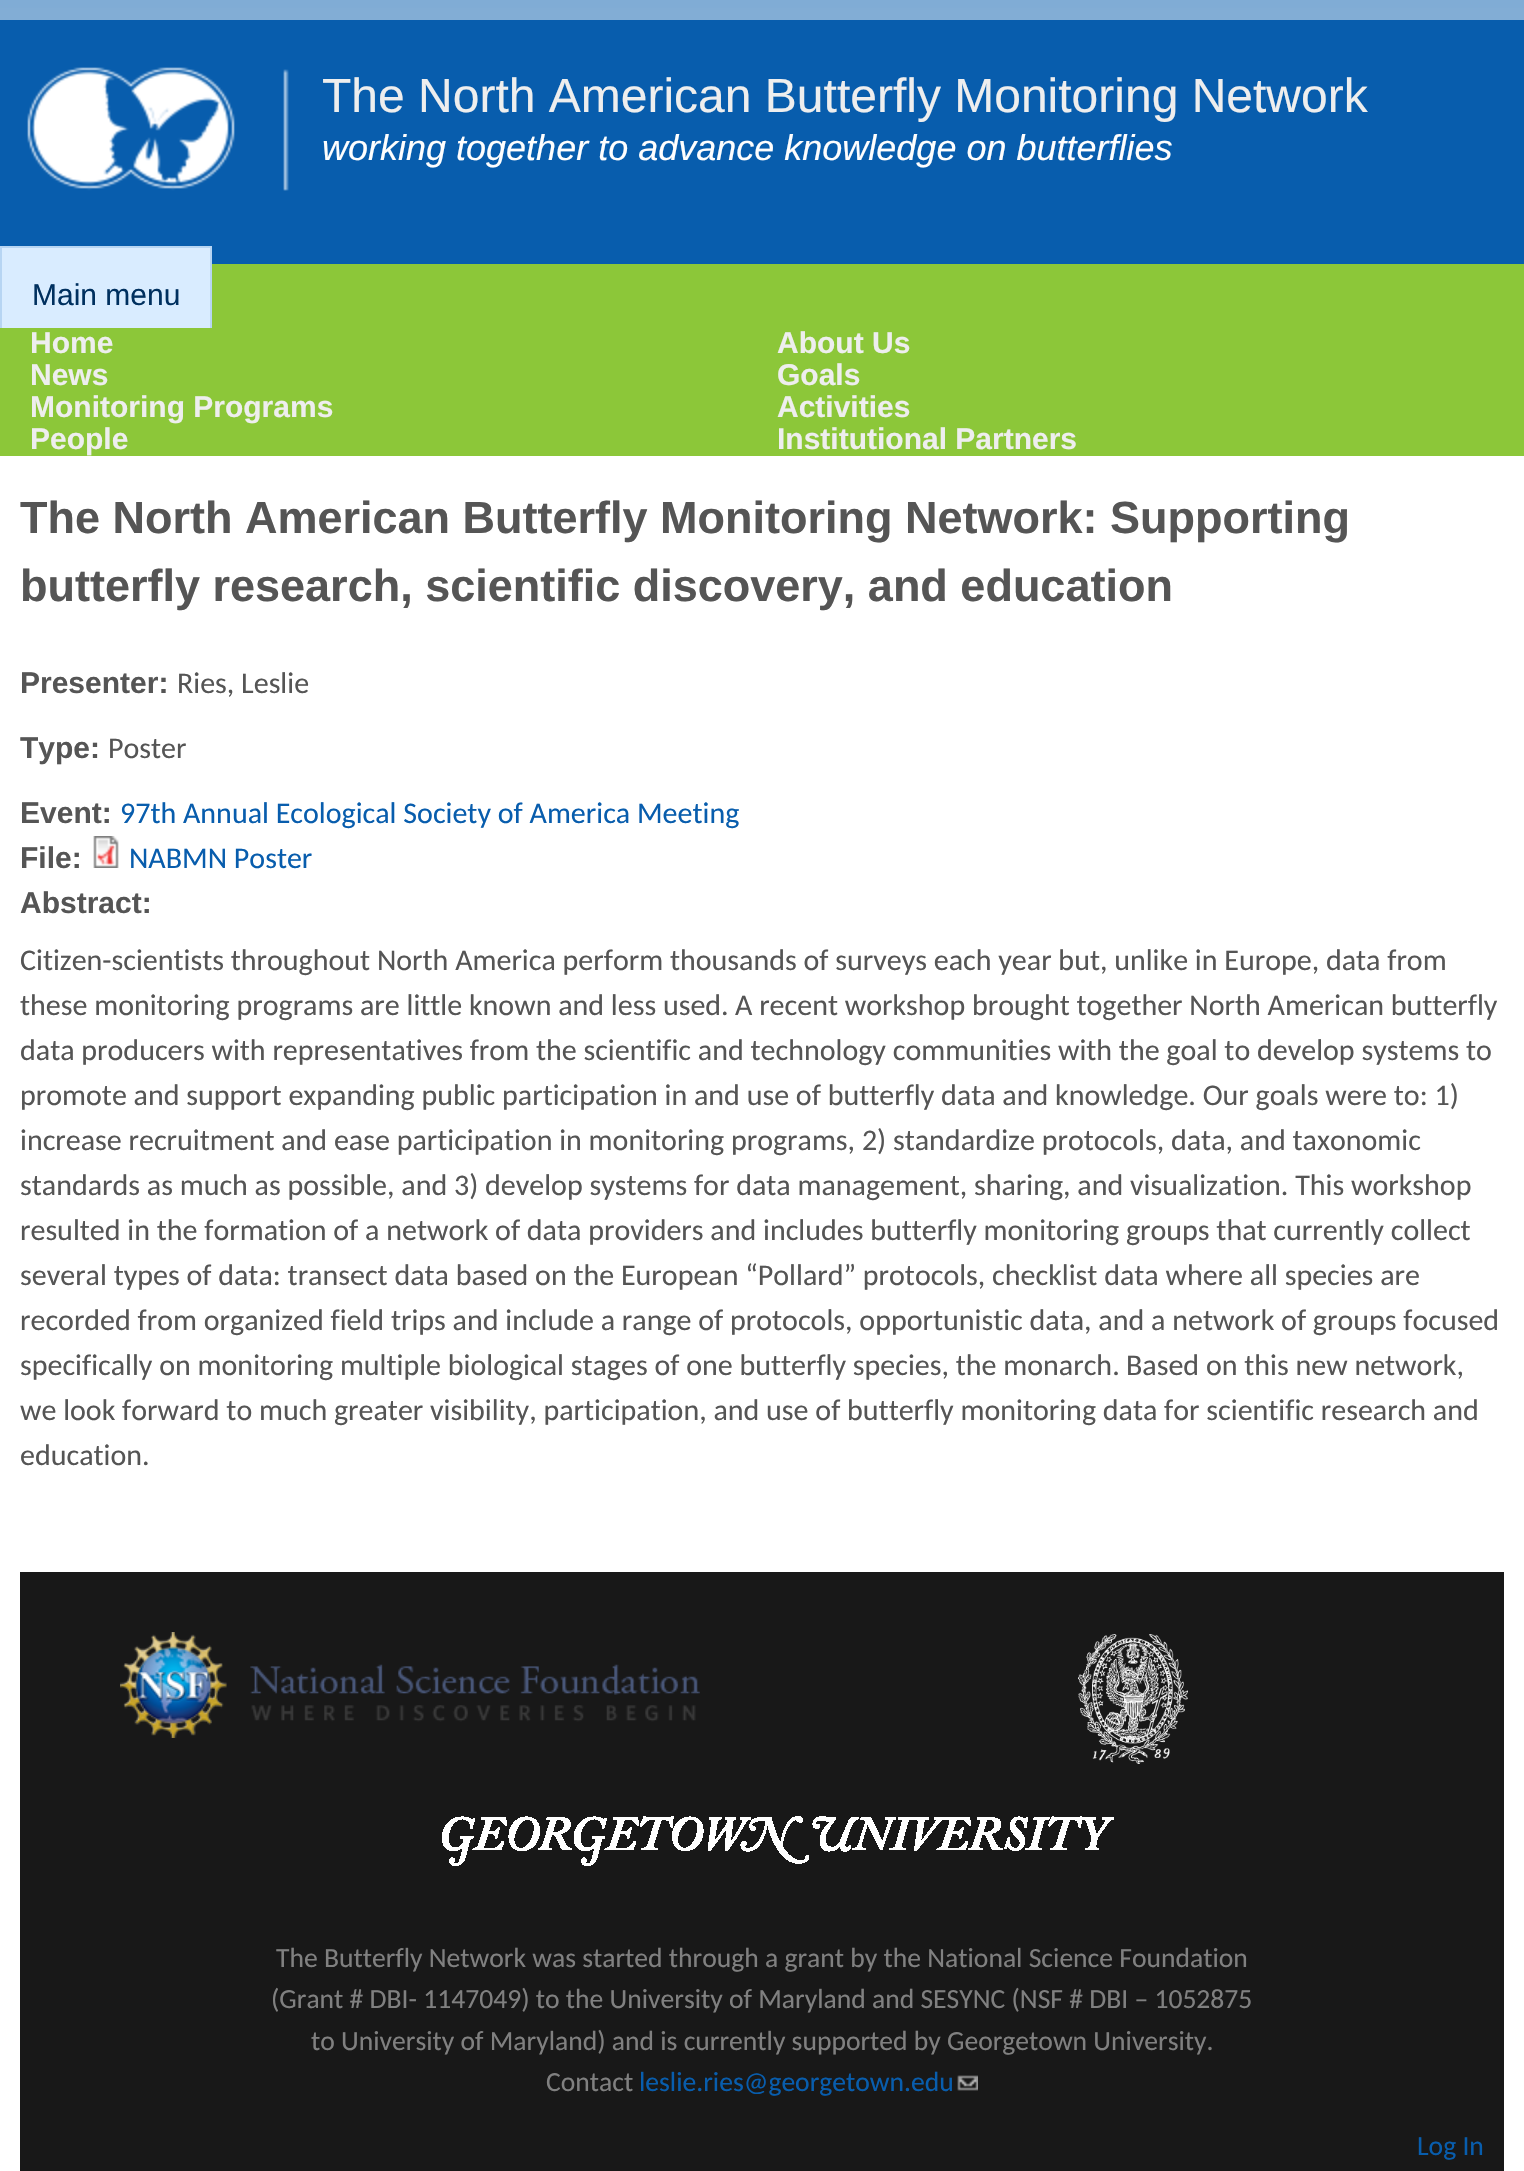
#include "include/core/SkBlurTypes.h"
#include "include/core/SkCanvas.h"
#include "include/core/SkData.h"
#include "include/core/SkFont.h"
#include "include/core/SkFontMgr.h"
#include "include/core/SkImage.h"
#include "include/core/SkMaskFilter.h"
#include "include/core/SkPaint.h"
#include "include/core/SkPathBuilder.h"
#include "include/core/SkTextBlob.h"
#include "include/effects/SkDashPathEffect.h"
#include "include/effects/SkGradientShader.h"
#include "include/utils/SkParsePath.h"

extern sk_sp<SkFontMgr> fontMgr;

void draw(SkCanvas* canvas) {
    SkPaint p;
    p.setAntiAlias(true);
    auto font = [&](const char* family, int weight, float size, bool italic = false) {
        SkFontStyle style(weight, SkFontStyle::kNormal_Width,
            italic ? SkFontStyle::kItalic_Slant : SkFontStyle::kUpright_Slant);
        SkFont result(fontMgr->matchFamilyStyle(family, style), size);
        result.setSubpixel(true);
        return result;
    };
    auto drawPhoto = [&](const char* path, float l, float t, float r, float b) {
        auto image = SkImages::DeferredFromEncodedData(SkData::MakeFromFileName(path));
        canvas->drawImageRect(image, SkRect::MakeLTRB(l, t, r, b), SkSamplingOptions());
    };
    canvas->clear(0xFFFFFFFF);
    drawPhoto("media/1.png", 0, 0, 1524, 20);
    p.setColor(0xFF085DAD);
    canvas->drawRect(SkRect::MakeLTRB(0, 20, 1524, 264), p);
    drawPhoto("media/2.png", 27, 67, 289, 191);
    auto font1 = font("Liberation Sans", 400, 48);
    p.setColor(0xFFEEEEEE);
    canvas->drawString("The North American Butterfly Monitoring Network", 322, 112, font1, p);
    auto font2 = font("Liberation Sans", 400, 36, true);
    p.setColor(0xFFFEFEFE);
    canvas->drawString("working together to advance knowledge on butterflies", 322, 160, font2, p);
    p.setColor(0xFF8CC739);
    canvas->drawRect(SkRect::MakeLTRB(0, 264, 1524, 456), p);
    p.setColor(0xFFD9ECFF);
    canvas->drawRect(SkRect::MakeLTRB(2, 248, 210, 328), p);
    p.setStyle(SkPaint::kStroke_Style);
    p.setStrokeWidth(2);
    p.setColor(0xFFB7D5F3);
    canvas->drawRect(SkRect::MakeLTRB(1, 247, 211, 343), p);
    auto font3 = font("Liberation Sans", 400, 30);
    p.setStyle(SkPaint::kFill_Style);
    p.setColor(0xFF00305F);
    canvas->drawString("Main menu", 32, 305, font3, p);
    p.setColor(0xFF8CC739);
    canvas->drawRect(SkRect::MakeLTRB(0, 328, 212, 344), p);
    auto font4 = font("Liberation Sans", 700, 30);
    p.setColor(0xFFEEEEEE);
    {
        const struct { const char* s; float x, y; } items[] = {
            {"Home", 30, 353},
            {"About Us", 777, 353},
            {"News", 30, 385},
            {"Goals", 777, 385},
            {"Monitoring Programs", 30, 417},
            {"Activities", 777, 417},
            {"People", 30, 449},
            {"Institutional Partners", 777, 449},
        };
        for (auto [s, x, y] : items) {
            canvas->drawString(s, x, y, font4, p);
        }
    }
    auto font5 = font("Liberation Sans", 700, 45);
    p.setColor(0xFF555555);
    canvas->drawString("The North American Butterfly Monitoring Network: Supporting", 20, 533, font5, p);
    canvas->drawString("butterfly research, scientific discovery, and education", 20, 601, font5, p);
    canvas->drawString("Presenter:", 20, 693, font4, p);
    auto font6 = font("Carlito", 400, 30);
    canvas->drawString("Ries, Leslie", 177, 693, font6, p);
    canvas->drawString("Type:", 20, 758, font4, p);
    canvas->drawString("Poster", 108, 758, font6, p);
    canvas->drawString("Event:", 20, 823, font4, p);
    p.setColor(0xFF085DAD);
    canvas->drawString("97th Annual Ecological Society of America Meeting", 120, 823, font6, p);
    p.setColor(0xFF555555);
    canvas->drawString("File:", 20, 868, font4, p);
    drawPhoto("media/3.png", 93, 836, 119, 868);
    p.setColor(0xFF085DAD);
    canvas->drawString("NABMN Poster", 129, 868, font6, p);
    p.setColor(0xFF555555);
    canvas->drawString("Abstract:", 20, 913, font4, p);
    {
        const struct { const char* s; float x, y; } items[] = {
            {"Citizen-scientists throughout North America perform thousands of surveys each year but, unlike in Europe, data from", 20, 970},
            {"these monitoring programs are little known and less used.", 20, 1015},
            {"A recent workshop brought together North American butterfly", 735, 1015},
            {"data producers with representatives from the scientific and technology communities with the goal to develop systems to", 20, 1060},
            {"promote and support expanding public participation in and use of butterfly data and knowledge. Our goals were to: 1)", 20, 1105},
            {"increase recruitment and ease participation in monitoring programs, 2) standardize protocols, data, and taxonomic", 20, 1150},
            {"standards as much as possible, and 3) develop systems for data management, sharing, and visualization. This workshop", 20, 1195},
            {"resulted in the formation of a network of data providers and includes butterfly monitoring groups that currently collect", 20, 1240},
            {"several types of data: transect data based on the European “Pollard” protocols, checklist data where all species are", 20, 1285},
            {"recorded from organized field trips and include a range of protocols, opportunistic data, and a network of groups focused", 20, 1330},
            {"specifically on monitoring multiple biological stages of one butterfly species, the monarch.", 20, 1375},
            {"Based on this new network,", 1126, 1375},
            {"we look forward to much greater visibility, participation, and use of butterfly monitoring data for scientific research and", 20, 1420},
            {"education.", 20, 1465},
        };
        for (auto [s, x, y] : items) {
            canvas->drawString(s, x, y, font6, p);
        }
    }
    p.setColor(0xFF181818);
    canvas->drawRect(SkRect::MakeLTRB(20, 1572, 1504, 2171), p);
    drawPhoto("media/4.png", 120, 1632, 700, 1738);
    drawPhoto("media/5.png", 1078, 1634, 1188, 1764);
    drawPhoto("media/6.png", 442, 1816, 1114, 1866);
    auto font7 = font("Carlito", 400, 27.6f);
    p.setColor(0xFF808080);
    {
        const struct { const char* s; float x, y; } items[] = {
            {"The Butterfly Network was started through a grant by the National Science Foundation", 276, 1967},
            {"(Grant # DBI- 1147049) to the University of Maryland and SESYNC (NSF # DBI – 1052875", 271, 2008},
            {"to University of Maryland) and is currently supported by Georgetown University.", 311, 2050},
            {"Contact", 546, 2091},
        };
        for (auto [s, x, y] : items) {
            canvas->drawString(s, x, y, font7, p);
        }
    }
    p.setColor(0xFF085DAD);
    canvas->drawString("leslie.ries@georgetown.edu", 639, 2091, font7, p);
    drawPhoto("media/7.png", 957, 2075, 978, 2091);
    canvas->drawString("Log In", 1417, 2155, font7, p);
}
